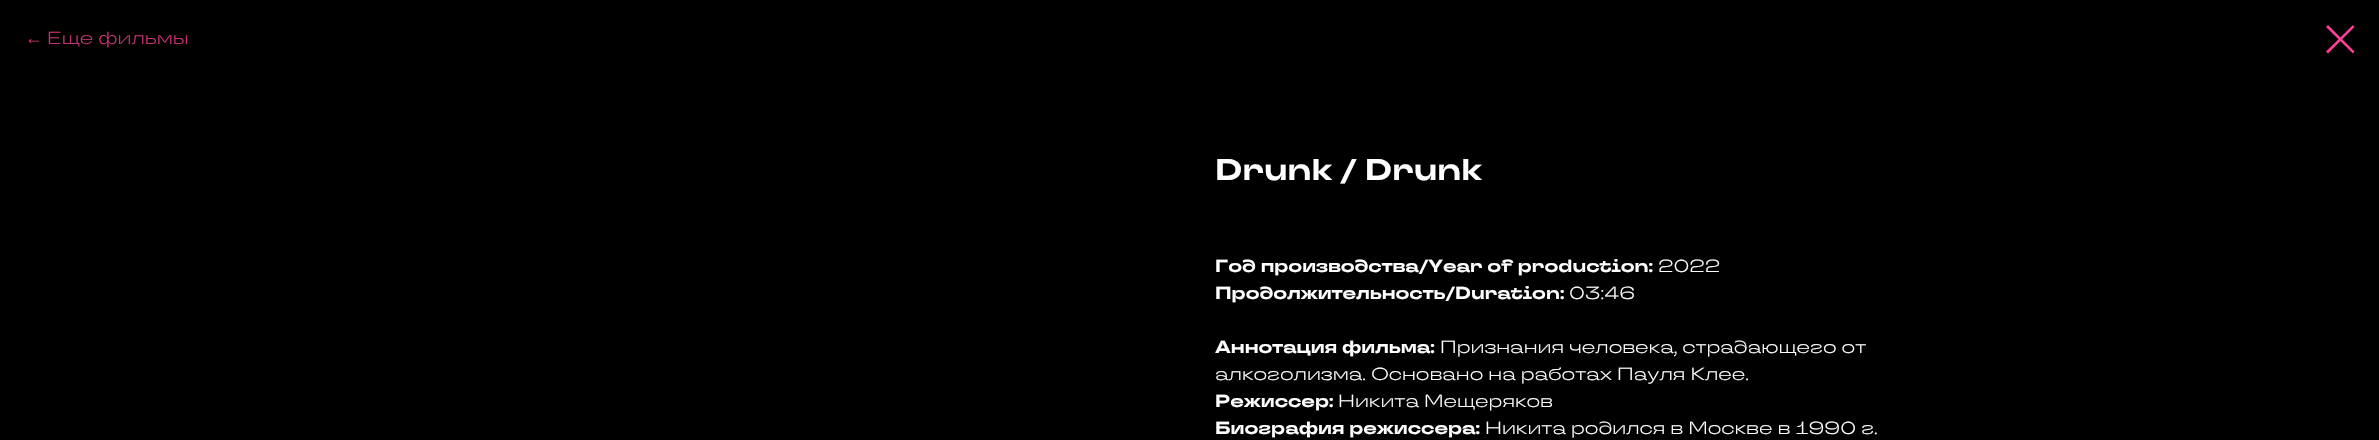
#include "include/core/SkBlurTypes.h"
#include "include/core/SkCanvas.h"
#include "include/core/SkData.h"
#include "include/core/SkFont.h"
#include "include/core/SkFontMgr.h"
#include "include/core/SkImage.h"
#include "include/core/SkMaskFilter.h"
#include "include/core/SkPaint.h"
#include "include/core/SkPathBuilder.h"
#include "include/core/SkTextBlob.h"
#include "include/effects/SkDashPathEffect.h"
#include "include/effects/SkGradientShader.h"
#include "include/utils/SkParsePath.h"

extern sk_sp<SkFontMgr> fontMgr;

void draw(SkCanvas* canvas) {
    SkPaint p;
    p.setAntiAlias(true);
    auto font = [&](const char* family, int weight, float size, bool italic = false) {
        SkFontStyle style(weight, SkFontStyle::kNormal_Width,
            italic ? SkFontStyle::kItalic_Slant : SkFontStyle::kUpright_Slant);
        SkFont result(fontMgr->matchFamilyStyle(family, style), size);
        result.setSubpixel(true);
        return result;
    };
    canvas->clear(0xFF000000);
    auto font1 = font("Liberation Sans", 400, 17.5f);
    p.setColor(0xFFCA3277);
    canvas->drawString("←", 25, 44, font1, p);
    auto font2 = font("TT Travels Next", 400, 17.5f);
    canvas->drawString("Еще фильмы", 47, 44, font2, p);
    p.setColor(0xFFFD3F95);
    canvas->drawPath(SkPathBuilder(SkPathFillType::kEvenOdd).moveTo(2326, 27).lineTo(2328, 25).lineTo(2354.5f, 51.5f).lineTo(2353, 53.5f).close().detach(), p);
    canvas->drawPath(SkPathBuilder(SkPathFillType::kEvenOdd).moveTo(2353, 25).lineTo(2354.5f, 27).lineTo(2328, 53.5f).lineTo(2326, 51.5f).close().detach(), p);
    auto font3 = font("TT Travels Next", 700, 30);
    p.setColor(0xFFFFFFFF);
    canvas->drawString("Drunk / Drunk", 1215, 180, font3, p);
    auto font4 = font("TT Travels Next", 700, 17.5f);
    canvas->drawString("Год производства/Year of production:", 1215, 272, font4, p);
    canvas->drawString("2022", 1658, 272, font2, p);
    canvas->drawString("Продолжительность/Duration:", 1215, 299, font4, p);
    canvas->drawString("03:46", 1569, 299, font2, p);
    canvas->drawString("Аннотация фильма:", 1215, 353, font4, p);
    canvas->drawString("Признания человека, страдающего от", 1440, 353, font2, p);
    canvas->drawString("алкоголизма. Основано на работах Пауля Клее.", 1215, 380, font2, p);
    canvas->drawString("Режиссер:", 1215, 407, font4, p);
    canvas->drawString("Никита Мещеряков", 1338, 407, font2, p);
    canvas->drawString("Биография режиссера:", 1215, 434, font4, p);
    canvas->drawString("Никита родился в Москве в 1990 г.", 1485, 434, font2, p);
}
